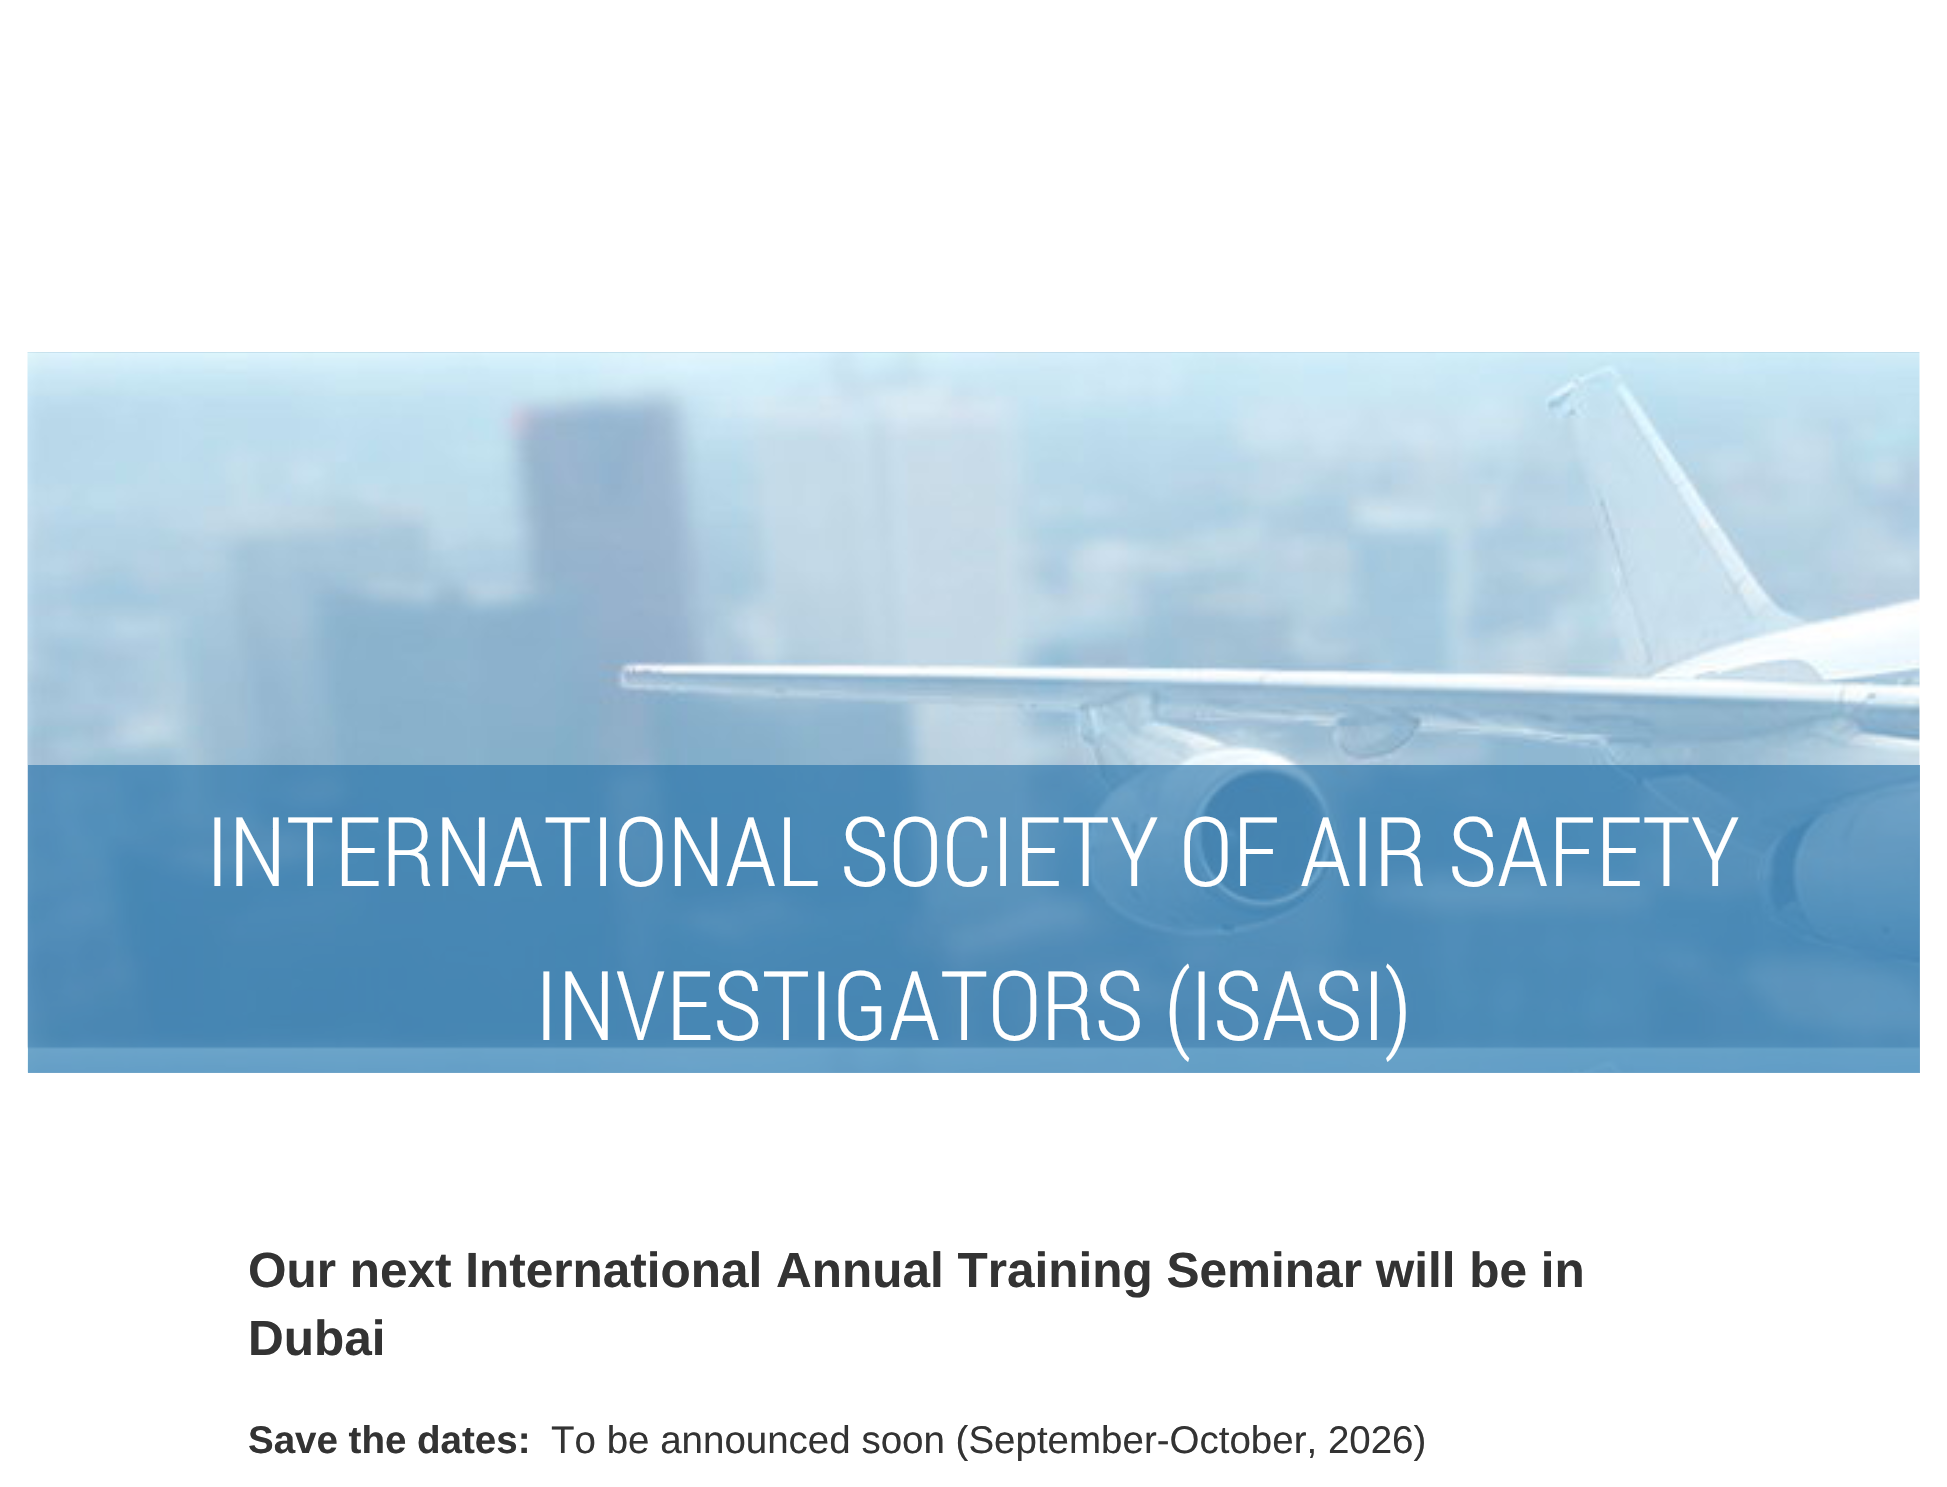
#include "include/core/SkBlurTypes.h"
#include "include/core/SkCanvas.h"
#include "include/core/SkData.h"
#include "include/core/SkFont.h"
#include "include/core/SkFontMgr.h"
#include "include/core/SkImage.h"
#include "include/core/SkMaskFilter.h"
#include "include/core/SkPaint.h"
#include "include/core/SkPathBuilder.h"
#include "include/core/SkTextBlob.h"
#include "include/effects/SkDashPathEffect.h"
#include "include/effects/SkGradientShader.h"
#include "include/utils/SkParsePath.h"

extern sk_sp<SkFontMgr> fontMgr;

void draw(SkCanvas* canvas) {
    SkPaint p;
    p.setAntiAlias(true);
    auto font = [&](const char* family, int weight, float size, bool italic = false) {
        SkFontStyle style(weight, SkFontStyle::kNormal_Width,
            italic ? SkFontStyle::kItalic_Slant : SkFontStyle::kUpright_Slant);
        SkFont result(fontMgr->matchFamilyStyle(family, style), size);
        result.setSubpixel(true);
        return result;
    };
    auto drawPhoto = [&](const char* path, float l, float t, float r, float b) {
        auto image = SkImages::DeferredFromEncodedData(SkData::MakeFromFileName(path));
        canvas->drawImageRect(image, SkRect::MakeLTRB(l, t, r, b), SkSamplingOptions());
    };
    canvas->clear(0xFFFFFFFF);
    drawPhoto("media/1.png", 27, 352, 1920, 1073);
    p.setColor(0x99206EA7);
    canvas->drawRect(SkRect::MakeLTRB(28, 765, 1920, 1073), p);
    auto font1 = font("Roboto Condensed", 300, 96.25f);
    p.setColor(0xFFFFFFFF);
    canvas->drawString("INTERNATIONAL SOCIETY OF AIR SAFETY", 206, 886, font1, p);
    canvas->drawString("INVESTIGATORS (ISASI)", 535, 1040, font1, p);
    auto font2 = font("Liberation Sans", 700, 49.5f);
    p.setColor(0xFF333333);
    canvas->drawString("Our next International Annual Training Seminar will be in", 248, 1287, font2, p);
    canvas->drawString("Dubai", 248, 1355, font2, p);
    auto font3 = font("Liberation Sans", 700, 38.5f);
    canvas->drawString("Save the dates:", 248, 1453, font3, p);
    auto font4 = font("Liberation Sans", 400, 38.5f);
    canvas->drawString("To be announced soon (September-October, 2026)", 551, 1453, font4, p);
}
